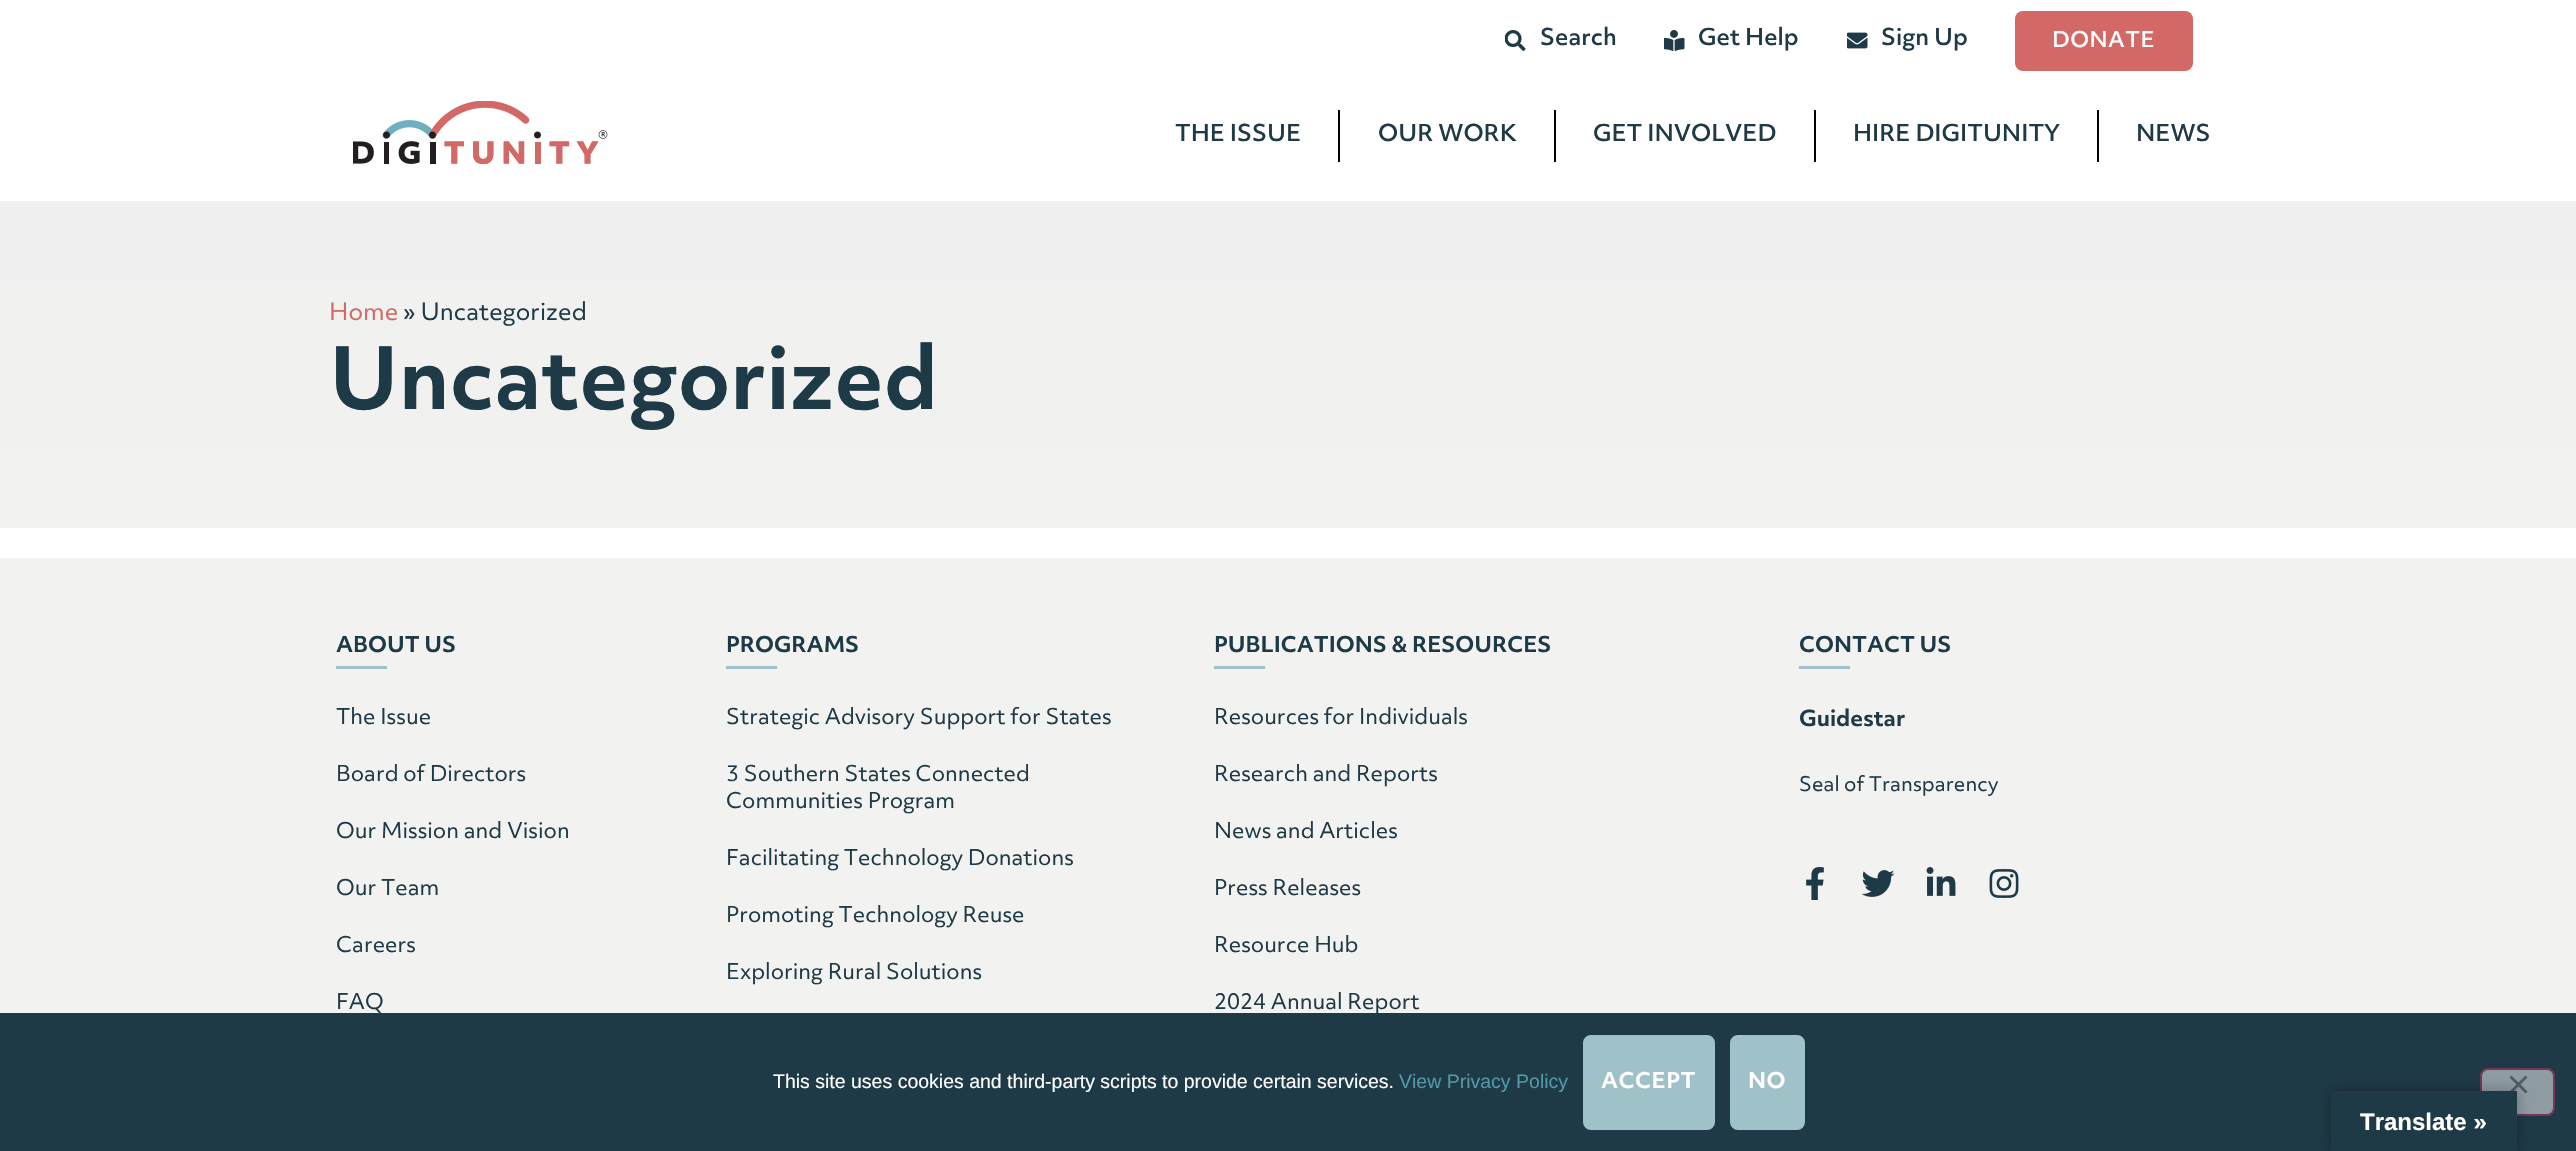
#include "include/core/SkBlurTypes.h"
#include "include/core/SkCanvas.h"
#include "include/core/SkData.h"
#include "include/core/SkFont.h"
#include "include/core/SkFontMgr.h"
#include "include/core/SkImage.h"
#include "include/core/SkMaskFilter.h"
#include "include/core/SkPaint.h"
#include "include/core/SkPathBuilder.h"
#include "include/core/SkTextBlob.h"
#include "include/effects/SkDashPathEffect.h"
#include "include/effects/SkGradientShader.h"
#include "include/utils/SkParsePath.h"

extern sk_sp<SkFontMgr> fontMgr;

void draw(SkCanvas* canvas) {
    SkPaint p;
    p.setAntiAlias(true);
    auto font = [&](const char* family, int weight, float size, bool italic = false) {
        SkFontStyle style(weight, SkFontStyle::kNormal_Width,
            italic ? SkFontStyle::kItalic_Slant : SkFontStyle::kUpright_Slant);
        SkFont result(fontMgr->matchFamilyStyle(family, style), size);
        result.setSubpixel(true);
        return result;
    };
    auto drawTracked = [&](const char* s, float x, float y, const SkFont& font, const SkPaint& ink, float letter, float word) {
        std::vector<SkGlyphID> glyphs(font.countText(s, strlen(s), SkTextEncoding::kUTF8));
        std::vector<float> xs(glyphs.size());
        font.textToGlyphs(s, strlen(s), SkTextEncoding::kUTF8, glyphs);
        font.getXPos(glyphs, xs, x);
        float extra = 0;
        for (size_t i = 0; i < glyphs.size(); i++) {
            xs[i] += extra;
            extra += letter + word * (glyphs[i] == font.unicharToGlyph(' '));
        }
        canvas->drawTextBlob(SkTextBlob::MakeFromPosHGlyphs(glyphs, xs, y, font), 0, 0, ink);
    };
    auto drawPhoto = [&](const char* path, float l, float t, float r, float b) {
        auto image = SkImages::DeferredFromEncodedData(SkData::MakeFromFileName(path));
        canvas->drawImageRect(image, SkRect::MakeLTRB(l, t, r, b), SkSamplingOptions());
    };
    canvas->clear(0xFFFFFFFF);
    drawPhoto("media/1.png", 1505, 30, 1526, 51);
    auto font1 = font("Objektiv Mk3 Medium", 500, 22.5f);
    p.setColor(0xFF1F3A47);
    canvas->drawString("Search", 1540, 45, font1, p);
    drawPhoto("media/2.png", 1664, 30, 1685, 51);
    canvas->drawString("Get Help", 1698, 45, font1, p);
    drawPhoto("media/3.png", 1847, 32, 1868, 49);
    canvas->drawString("Sign Up", 1881, 45, font1, p);
    p.setColor(0xFFD26966);
    canvas->drawRoundRect(SkRect::MakeLTRB(2015, 11, 2193, 71), 8, 8, p);
    auto font2 = font("Objektiv Mk3 Medium", 500, 21);
    p.setColor(0xFFFFFFFF);
    drawTracked("DONATE", 2052, 47, font2, p, 0.5f, 0);
    drawPhoto("media/4.png", 353, 101, 608, 164);
    p.setColor(0xFF1F3A47);
    canvas->drawString("THE ISSUE", 1175, 141, font1, p);
    p.setColor(0xFF000000);
    canvas->drawRect(SkRect::MakeLTRB(1338, 110, 1340, 162), p);
    p.setColor(0xFF1F3A47);
    canvas->drawString("OUR WORK", 1378, 141, font1, p);
    p.setColor(0xFF000000);
    canvas->drawRect(SkRect::MakeLTRB(1554, 110, 1556, 162), p);
    p.setColor(0xFF1F3A47);
    canvas->drawString("GET INVOLVED", 1593, 141, font1, p);
    p.setColor(0xFF000000);
    canvas->drawRect(SkRect::MakeLTRB(1814, 110, 1816, 162), p);
    p.setColor(0xFF1F3A47);
    canvas->drawString("HIRE DIGITUNITY", 1853, 141, font1, p);
    p.setColor(0xFF000000);
    canvas->drawRect(SkRect::MakeLTRB(2097, 110, 2099, 162), p);
    p.setColor(0xFF1F3A47);
    canvas->drawString("NEWS", 2136, 141, font1, p);
    {
        const SkColor colors[] = {0xFFF0F0F0, 0xFFF2F2F0};
        const float stops[] = {0, 1};
        const SkPoint ends[] = {{1289, 201}, {1289, 528}};
        p.setShader(SkGradientShader::MakeLinear(ends, colors, stops, 2, SkTileMode::kClamp));
        p.setAlpha(255);
    }
    canvas->drawRect(SkRect::MakeLTRB(0, 201, 2576, 528), p);
    auto font3 = font("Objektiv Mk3", 400, 23);
    p.setShader(nullptr);
    p.setColor(0xFFD26966);
    canvas->drawString("Home", 329, 320, font3, p);
    p.setColor(0xFF1F3A47);
    canvas->drawString("» Uncategorized", 403, 320, font3, p);
    auto font4 = font("Objektiv Mk3", 700, 82.5f);
    canvas->drawString("Uncategorized", 329, 409, font4, p);
    p.setColor(0xFFF2F2F0);
    canvas->drawRect(SkRect::MakeLTRB(0, 558, 2576, 1013), p);
    auto font5 = font("Objektiv Mk3", 700, 21);
    p.setColor(0xFF1F3A47);
    canvas->drawString("ABOUT US", 336, 652, font5, p);
    p.setColor(0xFF9FC2C8);
    canvas->drawRect(SkRect::MakeLTRB(336, 666, 387, 669), p);
    auto font6 = font("Objektiv Mk3", 400, 21);
    p.setColor(0xFF1F3A47);
    {
        const struct { const char* s; float x, y; } items[] = {
            {"The Issue", 336, 724},
            {"Board of Directors", 336, 781},
            {"Our Mission and Vision", 336, 838},
            {"Our Team", 336, 895},
            {"Careers", 336, 952},
            {"FAQ", 336, 1009},
        };
        for (auto [s, x, y] : items) {
            canvas->drawString(s, x, y, font6, p);
        }
    }
    canvas->drawString("PROGRAMS", 726, 652, font5, p);
    p.setColor(0xFF9FC2C8);
    canvas->drawRect(SkRect::MakeLTRB(726, 666, 777, 669), p);
    p.setColor(0xFF1F3A47);
    {
        const struct { const char* s; float x, y; } items[] = {
            {"Strategic Advisory Support for States", 726, 724},
            {"3 Southern States Connected", 726, 781},
            {"Communities Program", 726, 808},
            {"Facilitating Technology Donations", 726, 865},
            {"Promoting Technology Reuse", 726, 922},
            {"Exploring Rural Solutions", 726, 979},
        };
        for (auto [s, x, y] : items) {
            canvas->drawString(s, x, y, font6, p);
        }
    }
    canvas->drawString("PUBLICATIONS & RESOURCES", 1214, 652, font5, p);
    p.setColor(0xFF9FC2C8);
    canvas->drawRect(SkRect::MakeLTRB(1214, 666, 1265, 669), p);
    p.setColor(0xFF1F3A47);
    {
        const struct { const char* s; float x, y; } items[] = {
            {"Resources for Individuals", 1214, 724},
            {"Research and Reports", 1214, 781},
            {"News and Articles", 1214, 838},
            {"Press Releases", 1214, 895},
            {"Resource Hub", 1214, 952},
            {"2024 Annual Report", 1214, 1009},
        };
        for (auto [s, x, y] : items) {
            canvas->drawString(s, x, y, font6, p);
        }
    }
    canvas->drawString("CONTACT US", 1799, 652, font5, p);
    p.setColor(0xFF9FC2C8);
    canvas->drawRect(SkRect::MakeLTRB(1799, 666, 1850, 669), p);
    auto font7 = font("Objektiv Mk3", 700, 21.5f);
    p.setColor(0xFF1F3A47);
    canvas->drawString("Guidestar", 1799, 726, font7, p);
    auto font8 = font("Objektiv Mk3", 400, 19.5f);
    canvas->drawString("Seal of Transparency", 1799, 791, font8, p);
    drawPhoto("media/5.png", 1806, 867, 1824, 900);
    drawPhoto("media/6.png", 1862, 870, 1895, 897);
    drawPhoto("media/7.png", 1926, 867, 1956, 896);
    drawPhoto("media/8.png", 1989, 869, 2019, 898);
    canvas->drawRect(SkRect::MakeLTRB(0, 1013, 2576, 1151), p);
    auto font9 = font("Liberation Sans", 400, 19.5f);
    p.setColor(0xFFFFFFFF);
    canvas->drawString("This site uses cookies and third-party scripts to provide certain services.", 773, 1088, font9, p);
    p.setColor(0xFF5399A5);
    canvas->drawString("View Privacy Policy", 1399, 1088, font9, p);
    p.setColor(0xFF9FC2C8);
    canvas->drawRoundRect(SkRect::MakeLTRB(1584.5f, 1036.5f, 1713.5f, 1128.5f), 6.5f, 6.5f, p);
    p.setStyle(SkPaint::kStroke_Style);
    p.setStrokeWidth(3);
    canvas->drawRoundRect(SkRect::MakeLTRB(1584.5f, 1036.5f, 1713.5f, 1128.5f), 6.5f, 6.5f, p);
    p.setStyle(SkPaint::kFill_Style);
    p.setColor(0xFFFFFFFF);
    drawTracked("ACCEPT", 1601, 1088, font5, p, 0.5f, 0);
    p.setColor(0xFF9FC2C8);
    canvas->drawRoundRect(SkRect::MakeLTRB(1731.5f, 1036.5f, 1803.5f, 1128.5f), 6.5f, 6.5f, p);
    p.setStyle(SkPaint::kStroke_Style);
    canvas->drawRoundRect(SkRect::MakeLTRB(1731.5f, 1036.5f, 1803.5f, 1128.5f), 6.5f, 6.5f, p);
    p.setStyle(SkPaint::kFill_Style);
    p.setColor(0xFFFFFFFF);
    drawTracked("NO", 1748, 1088, font5, p, 0.5f, 0);
    p.setColor(0xFF8F9DA3);
    canvas->drawRoundRect(SkRect::MakeLTRB(2481, 1069, 2554, 1115), 7, 7, p);
    p.setStyle(SkPaint::kStroke_Style);
    p.setStrokeWidth(2);
    p.setColor(0xFF763757);
    canvas->drawRoundRect(SkRect::MakeLTRB(2481, 1069, 2554, 1115), 7, 7, p);
    p.setStyle(SkPaint::kFill_Style);
    p.setColor(0xFF505D64);
    canvas->drawPath(SkPathBuilder().moveTo(2525.5f, 1075.5f).lineTo(2527.5f, 1077.5f).lineTo(2511.5f, 1093.5f).lineTo(2509.5f, 1091.5f).close().detach(), p);
    canvas->drawPath(SkPathBuilder().moveTo(2509.5f, 1077.5f).lineTo(2511.5f, 1075.5f).lineTo(2527.5f, 1091.5f).lineTo(2525.5f, 1093.5f).close().detach(), p);
    p.setColor(0x4D000000);
    p.setMaskFilter(SkMaskFilter::MakeBlur(kNormal_SkBlurStyle, 7));
    canvas->drawRect(SkRect::MakeLTRB(2331, 1091, 2517, 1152), p);
    p.setMaskFilter(nullptr);
    p.setColor(0xFF1F3A47);
    canvas->drawRect(SkRect::MakeLTRB(2331, 1091, 2517, 1151), p);
    auto font10 = font("Liberation Sans", 700, 24);
    p.setColor(0xFFFFFFFF);
    canvas->drawString("Translate »", 2360, 1130, font10, p);
}
